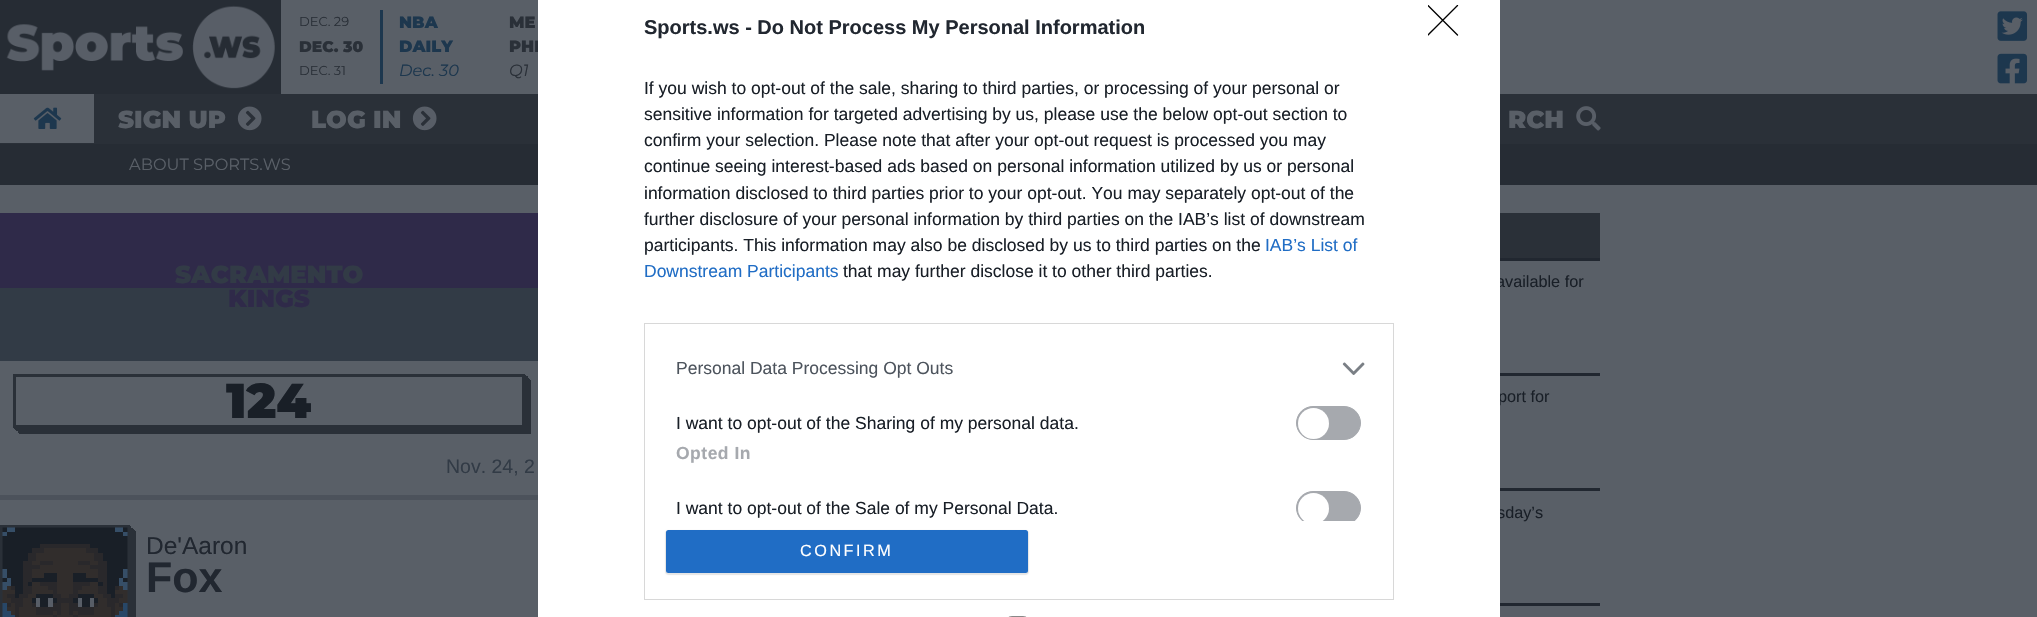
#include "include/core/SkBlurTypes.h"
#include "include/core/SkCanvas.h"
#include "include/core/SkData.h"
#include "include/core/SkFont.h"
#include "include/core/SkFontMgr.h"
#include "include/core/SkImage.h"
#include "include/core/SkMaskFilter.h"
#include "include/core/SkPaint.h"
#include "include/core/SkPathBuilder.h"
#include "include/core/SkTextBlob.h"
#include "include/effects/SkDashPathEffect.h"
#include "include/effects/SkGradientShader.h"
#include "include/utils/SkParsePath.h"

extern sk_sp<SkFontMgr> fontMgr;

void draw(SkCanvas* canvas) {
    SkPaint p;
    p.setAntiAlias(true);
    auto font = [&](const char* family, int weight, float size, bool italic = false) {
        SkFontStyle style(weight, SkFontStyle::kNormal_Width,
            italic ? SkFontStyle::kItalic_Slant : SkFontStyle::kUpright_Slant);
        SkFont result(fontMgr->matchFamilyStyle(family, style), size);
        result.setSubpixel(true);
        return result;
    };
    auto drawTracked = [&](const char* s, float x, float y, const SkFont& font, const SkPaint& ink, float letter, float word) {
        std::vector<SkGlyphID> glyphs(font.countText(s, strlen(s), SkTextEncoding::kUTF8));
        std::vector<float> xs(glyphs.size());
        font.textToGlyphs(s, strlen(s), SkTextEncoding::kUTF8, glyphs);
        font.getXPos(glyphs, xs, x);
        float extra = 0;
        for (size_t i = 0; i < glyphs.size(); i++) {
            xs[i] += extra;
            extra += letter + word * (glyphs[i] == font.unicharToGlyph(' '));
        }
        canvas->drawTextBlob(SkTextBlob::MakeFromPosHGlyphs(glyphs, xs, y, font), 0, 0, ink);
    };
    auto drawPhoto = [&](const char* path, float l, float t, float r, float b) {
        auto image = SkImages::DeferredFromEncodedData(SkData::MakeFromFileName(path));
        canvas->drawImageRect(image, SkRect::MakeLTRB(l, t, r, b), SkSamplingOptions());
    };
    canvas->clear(0xFF595F67);
    p.setColor(0xFF262C34);
    canvas->drawRect(SkRect::MakeLTRB(0, 0, 281, 94), p);
    drawPhoto("media/1.png", 6, 5, 275, 89);
    p.setColor(0xFF1D374E);
    canvas->drawRect(SkRect::MakeLTRB(380, 10, 383, 84), p);
    auto font1 = font("Montserrat", 400, 13);
    p.setColor(0xFF2A3038);
    canvas->drawString("DEC. 29", 299, 26, font1, p);
    auto font2 = font("Montserrat", 900, 15.5f);
    canvas->drawString("DEC. 30", 299, 52, font2, p);
    canvas->drawString("DEC. 31", 299, 75, font1, p);
    auto font3 = font("Montserrat", 900, 16.25f);
    p.setColor(0xFF1D374E);
    canvas->drawString("NBA", 399, 28, font3, p);
    canvas->drawString("DAILY", 399, 52, font3, p);
    auto font4 = font("Montserrat", 400, 16.25f, true);
    canvas->drawString("Dec. 30", 399, 76, font4, p);
    p.setColor(0xFF2A3038);
    canvas->drawString("ME", 509, 28, font3, p);
    canvas->drawString("PHI", 509, 52, font3, p);
    canvas->drawString("Q1", 509, 76, font4, p);
    drawPhoto("media/2.png", 1997, 11, 2028, 41);
    drawPhoto("media/3.png", 1997, 53, 2028, 84);
    canvas->drawRect(SkRect::MakeLTRB(0, 94, 2037, 144), p);
    p.setColor(0xFF595F67);
    canvas->drawRect(SkRect::MakeLTRB(0, 94, 94, 143), p);
    drawPhoto("media/4.png", 33, 107, 62, 129);
    auto font5 = font("Montserrat", 900, 24.5f);
    canvas->drawString("SIGN UP", 118, 128, font5, p);
    drawPhoto("media/5.png", 237, 106, 262, 131);
    canvas->drawString("LOG IN", 311, 128, font5, p);
    drawPhoto("media/5.png", 412, 106, 437, 131);
    canvas->drawString("RCH", 1508, 128, font5, p);
    drawPhoto("media/6.png", 1576, 106, 1601, 131);
    p.setColor(0xFF262C34);
    canvas->drawRect(SkRect::MakeLTRB(0, 144, 2037, 185), p);
    auto font6 = font("Montserrat", 400, 16.25f);
    p.setColor(0xFF595F67);
    canvas->drawString("ABOUT SPORTS.WS", 129, 170, font6, p);
    auto font7 = font("Liberation Sans", 400, 16.25f);
    p.setColor(0xFF191F27);
    {
        const struct { const char* s; float x, y; } items[] = {
            {"available for", 1496, 287},
            {"port for", 1498, 402},
            {"sday’s", 1497, 518},
        };
        for (auto [s, x, y] : items) {
            canvas->drawString(s, x, y, font7, p);
        }
    }
    p.setColor(0xFFFFFFFF);
    canvas->drawRect(SkRect::MakeLTRB(538, 0, 1500, 617), p);
    auto font8 = font("Liberation Sans", 700, 20);
    p.setColor(0xFF212730);
    canvas->drawString("Sports.ws - Do Not Process My Personal Information", 644, 34, font8, p);
    auto font9 = font("Liberation Sans", 400, 17.5f);
    p.setColor(0xFF191F27);
    {
        const struct { const char* s; float x, y; } items[] = {
            {"If you wish to opt-out of the sale, sharing to third parties, or processing of your personal or", 644, 94},
            {"sensitive information for targeted advertising by us, please use the below opt-out section to", 644, 120},
            {"confirm your selection. Please note that after your opt-out request is processed you may", 644, 146},
            {"continue seeing interest-based ads based on personal information utilized by us or personal", 644, 172},
            {"information disclosed to third parties prior to your opt-out. You may separately opt-out of the", 644, 199},
            {"further disclosure of your personal information by third parties on the IAB’s list of downstream", 644, 225},
            {"participants. This information may also be disclosed by us to third parties on the", 644, 251},
        };
        for (auto [s, x, y] : items) {
            canvas->drawString(s, x, y, font9, p);
        }
    }
    p.setColor(0xFF206DC5);
    canvas->drawString("IAB’s List of", 1265, 251, font9, p);
    canvas->drawString("Downstream Participants", 644, 277, font9, p);
    p.setColor(0xFF191F27);
    canvas->drawString("that may further disclose it to other third parties.", 843, 277, font9, p);
    p.setStyle(SkPaint::kStroke_Style);
    p.setStrokeWidth(1);
    p.setColor(0xFFD8D8D8);
    canvas->drawRect(SkRect::MakeLTRB(644.5f, 323.5f, 1393.5f, 599.5f), p);
    p.setStyle(SkPaint::kFill_Style);
    p.setColor(0xFF4D545D);
    canvas->drawString("Personal Data Processing Opt Outs", 676, 374, font9, p);
    drawPhoto("media/7.png", 1342, 362, 1365, 375);
    p.setColor(0xFF191F27);
    canvas->drawString("I want to opt-out of the Sharing of my personal data.", 676, 429, font9, p);
    p.setColor(0xFFA6A9AE);
    canvas->drawRoundRect(SkRect::MakeLTRB(1296.5f, 406.5f, 1360.5f, 439.5f), 16.5f, 16.5f, p);
    p.setStyle(SkPaint::kStroke_Style);
    canvas->drawRoundRect(SkRect::MakeLTRB(1296.5f, 406.5f, 1360.5f, 439.5f), 16.5f, 16.5f, p);
    p.setStyle(SkPaint::kFill_Style);
    p.setColor(0xFFFFFFFF);
    canvas->drawCircle(1313.5f, 423.5f, 15.5f, p);
    auto font10 = font("Liberation Sans", 700, 17.5f);
    p.setColor(0xFFA6A9AE);
    drawTracked("Opted In", 676, 459, font10, p, 0.5f, 0);
    p.setColor(0xFF191F27);
    canvas->drawString("I want to opt-out of the Sale of my Personal Data.", 676, 514, font9, p);
    canvas->save();
    canvas->clipRect(SkRect::MakeLTRB(658, 336, 1380, 521));
    p.setColor(0xFFA6A9AE);
    canvas->drawRoundRect(SkRect::MakeLTRB(1296.5f, 491.5f, 1360.5f, 524.5f), 16.5f, 16.5f, p);
    p.setStyle(SkPaint::kStroke_Style);
    canvas->drawRoundRect(SkRect::MakeLTRB(1296.5f, 491.5f, 1360.5f, 524.5f), 16.5f, 16.5f, p);
    p.setStyle(SkPaint::kFill_Style);
    p.setColor(0xFFFFFFFF);
    canvas->drawCircle(1313.5f, 508.5f, 15.5f, p);
    canvas->restore();
    p.setColor(0x1A000000);
    p.setMaskFilter(SkMaskFilter::MakeBlur(kNormal_SkBlurStyle, 0.5f));
    canvas->drawRoundRect(SkRect::MakeLTRB(665, 530, 1029, 575), 4, 4, p);
    p.setMaskFilter(nullptr);
    p.setColor(0xFF206DC5);
    canvas->drawRoundRect(SkRect::MakeLTRB(666, 530, 1028, 573), 2.5f, 2.5f, p);
    p.setColor(0xFFFFFFFF);
    drawTracked("CONFIRM", 800, 556, font7, p, 2.5f, 0);
    canvas->save();
    canvas->clipRect(SkRect::MakeLTRB(1428, 5, 1459, 36));
    p.setStyle(SkPaint::kStroke_Style);
    p.setStrokeWidth(1.3f);
    p.setStrokeCap(SkPaint::kRound_Cap);
    p.setStrokeJoin(SkPaint::kRound_Join);
    p.setColor(0xFF000000);
    canvas->drawPath(SkPathBuilder().moveTo(1428, 5.5f).lineTo(1457.5f, 35).moveTo(1457.5f, 5.5f).lineTo(1428, 35).detach(), p);
    canvas->restore();
    p.setStyle(SkPaint::kFill_Style);
    p.setColor(0xFF2F2A49);
    canvas->drawRect(SkRect::MakeLTRB(0, 213, 538, 288), p);
    p.setColor(0xFF323B46);
    canvas->drawString("SACRAMENTO", 175, 283, font5, p);
    canvas->drawRect(SkRect::MakeLTRB(0, 288, 538, 361), p);
    p.setColor(0xFF2F2A49);
    canvas->drawString("KINGS", 228, 307, font5, p);
    p.setColor(0xFF2A3038);
    canvas->drawPath(SkPathBuilder().moveTo(19, 428).lineTo(19, 434).lineTo(531, 434).lineTo(531, 380).lineTo(525, 380).lineTo(525, 428).close().detach(), p);
    canvas->drawPath(SkPathBuilder().moveTo(18, 428).lineTo(18, 433).lineTo(530, 433).lineTo(530, 379).lineTo(525, 379).lineTo(525, 428).close().detach(), p);
    canvas->drawPath(SkPathBuilder().moveTo(16, 428).lineTo(16, 431).lineTo(529, 431).lineTo(529, 378).lineTo(525, 378).lineTo(525, 428).close().detach(), p);
    canvas->drawPath(SkPathBuilder().moveTo(15, 428).lineTo(15, 430).lineTo(528, 430).lineTo(528, 376).lineTo(525, 376).lineTo(525, 428).close().detach(), p);
    canvas->drawPath(SkPathBuilder().moveTo(14, 428).lineTo(14, 429).lineTo(526, 429).lineTo(526, 375).lineTo(525, 375).lineTo(525, 428).close().detach(), p);
    p.setStyle(SkPaint::kStroke_Style);
    p.setStrokeWidth(3);
    p.setStrokeCap(SkPaint::kButt_Cap);
    p.setStrokeJoin(SkPaint::kMiter_Join);
    canvas->drawRect(SkRect::MakeLTRB(14.5f, 375.5f, 523.5f, 426.5f), p);
    auto font11 = font("Montserrat", 900, 49);
    p.setStyle(SkPaint::kFill_Style);
    p.setColor(0xFF191F27);
    canvas->drawString("124", 226, 418, font11, p);
    p.setColor(0xFF4C525B);
    canvas->drawRect(SkRect::MakeLTRB(0, 495, 538, 500), p);
    auto font12 = font("Liberation Sans", 400, 19.5f);
    p.setColor(0xFF323B46);
    canvas->drawString("Nov. 24, 2", 446, 473, font12, p);
    p.setColor(0xFF2A3038);
    canvas->drawPath(SkPathBuilder().moveTo(6, 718).lineTo(6, 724).lineTo(136, 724).lineTo(136, 531).lineTo(130, 531).lineTo(130, 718).close().detach(), p);
    canvas->drawPath(SkPathBuilder().moveTo(5, 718).lineTo(5, 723).lineTo(135, 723).lineTo(135, 530).lineTo(130, 530).lineTo(130, 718).close().detach(), p);
    canvas->drawPath(SkPathBuilder().moveTo(4, 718).lineTo(4, 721).lineTo(134, 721).lineTo(134, 529).lineTo(130, 529).lineTo(130, 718).close().detach(), p);
    canvas->drawPath(SkPathBuilder().moveTo(3, 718).lineTo(3, 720).lineTo(133, 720).lineTo(133, 528).lineTo(130, 528).lineTo(130, 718).close().detach(), p);
    canvas->drawPath(SkPathBuilder().moveTo(1, 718).lineTo(1, 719).lineTo(131, 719).lineTo(131, 526).lineTo(130, 526).lineTo(130, 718).close().detach(), p);
    p.setStyle(SkPaint::kStroke_Style);
    canvas->drawRect(SkRect::MakeLTRB(1.5f, 526.5f, 128.5f, 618.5f), p);
    drawPhoto("media/8.png", 2, 527, 128, 617);
    auto font13 = font("Liberation Sans", 400, 24.5f);
    p.setStyle(SkPaint::kFill_Style);
    p.setColor(0xFF212730);
    canvas->drawString("De'Aaron", 146, 554, font13, p);
    auto font14 = font("Liberation Sans", 700, 43);
    canvas->drawString("Fox", 146, 592, font14, p);
    {
        const struct { float l, t, r, b; SkColor color; } items[] = {
            {1500, 213, 1600, 258, 0xFF2A3038},
            {1500, 258, 1600, 261, 0xFF212730},
            {1500, 373, 1600, 376, 0xFF212730},
            {1500, 488, 1600, 491, 0xFF212730},
            {1500, 603, 1600, 606, 0xFF212730},
        };
        for (auto [l, t, r, b, color] : items) {
            p.setColor(color);
            canvas->drawRect(SkRect::MakeLTRB(l, t, r, b), p);
        }
    }
    p.setStyle(SkPaint::kStroke_Style);
    p.setStrokeWidth(1);
    p.setColor(0xFFF9F9F9);
    canvas->drawRoundRect(SkRect::MakeLTRB(1004.5f, 616.5f, 1030.5f, 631.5f), 13, 13, p);
    p.setColor(0xFF888888);
    canvas->drawRoundRect(SkRect::MakeLTRB(1004.5f, 616.5f, 1030.5f, 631.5f), 13, 13, p);
}
